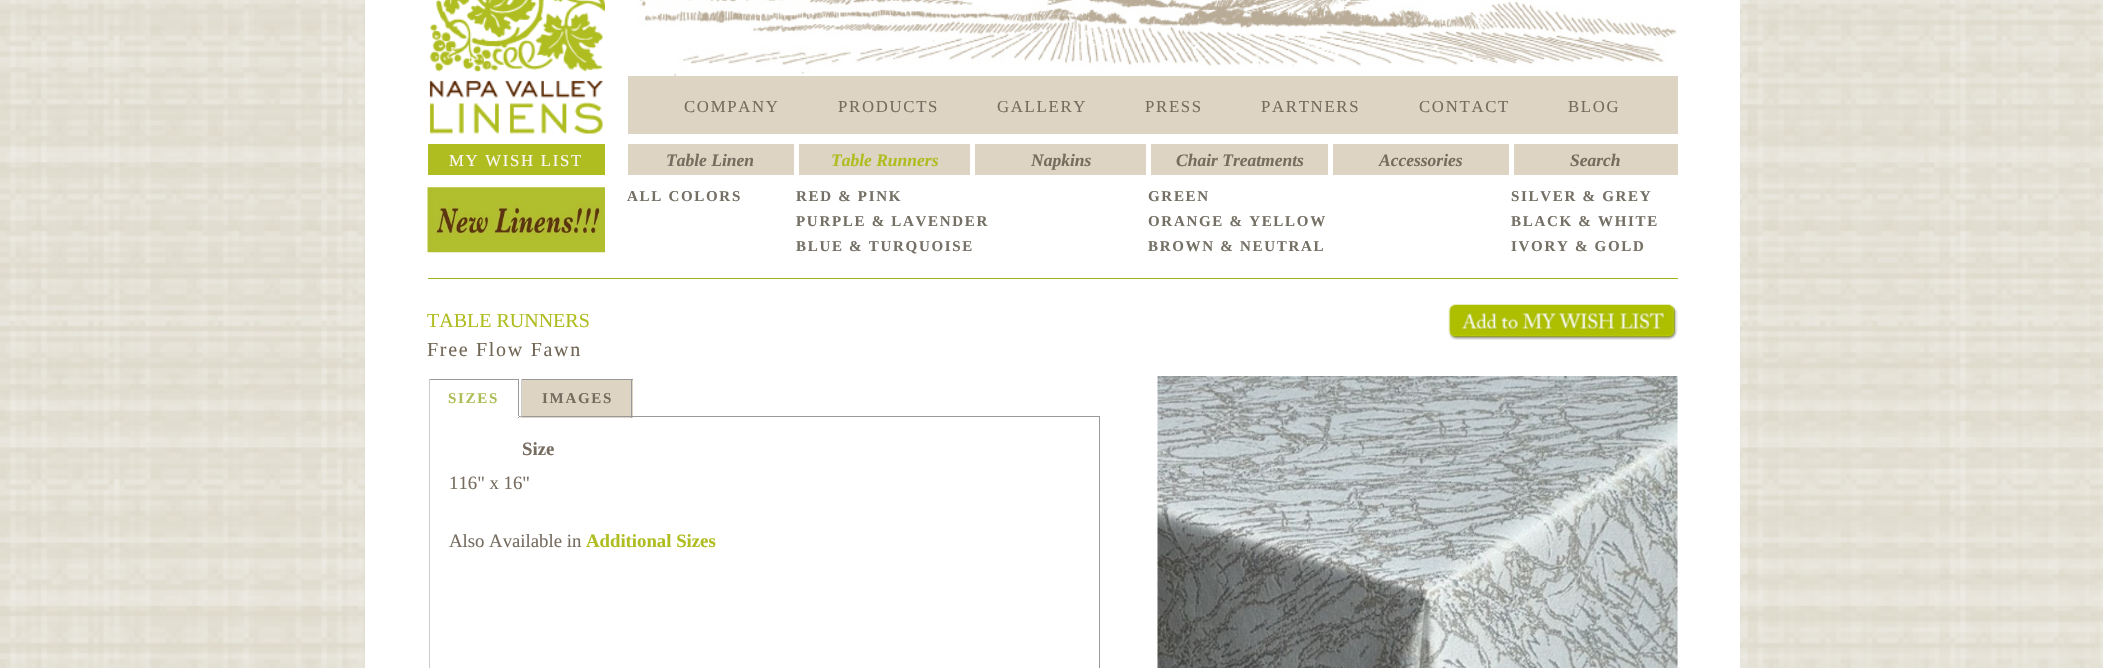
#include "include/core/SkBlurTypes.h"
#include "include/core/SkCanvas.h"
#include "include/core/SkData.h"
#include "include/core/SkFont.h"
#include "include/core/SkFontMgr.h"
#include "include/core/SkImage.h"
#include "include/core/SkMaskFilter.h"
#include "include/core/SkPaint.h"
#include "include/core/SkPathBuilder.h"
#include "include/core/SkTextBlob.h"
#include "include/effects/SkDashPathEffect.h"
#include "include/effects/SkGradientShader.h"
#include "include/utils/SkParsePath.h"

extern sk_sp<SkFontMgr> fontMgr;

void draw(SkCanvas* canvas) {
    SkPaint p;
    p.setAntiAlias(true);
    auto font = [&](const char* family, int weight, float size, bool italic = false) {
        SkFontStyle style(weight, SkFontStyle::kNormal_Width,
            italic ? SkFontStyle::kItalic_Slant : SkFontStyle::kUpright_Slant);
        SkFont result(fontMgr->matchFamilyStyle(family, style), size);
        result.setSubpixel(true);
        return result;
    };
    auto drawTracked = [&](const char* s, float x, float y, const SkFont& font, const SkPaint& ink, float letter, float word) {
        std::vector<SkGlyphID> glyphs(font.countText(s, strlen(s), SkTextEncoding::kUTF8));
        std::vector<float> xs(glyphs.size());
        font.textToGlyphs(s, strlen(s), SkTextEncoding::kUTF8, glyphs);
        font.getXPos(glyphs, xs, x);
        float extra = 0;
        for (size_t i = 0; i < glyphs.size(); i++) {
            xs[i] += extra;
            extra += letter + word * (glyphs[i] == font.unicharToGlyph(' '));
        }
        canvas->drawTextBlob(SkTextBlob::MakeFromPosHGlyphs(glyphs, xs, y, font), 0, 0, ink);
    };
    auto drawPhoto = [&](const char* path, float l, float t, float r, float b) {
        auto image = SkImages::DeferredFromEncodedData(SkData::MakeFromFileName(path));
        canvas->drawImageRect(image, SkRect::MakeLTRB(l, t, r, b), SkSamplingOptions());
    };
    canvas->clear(0xFFFFFFFF);
    drawPhoto("media/1.png", 0, 0, 2103, 668);
    p.setColor(0xFFFFFFFF);
    canvas->drawRect(SkRect::MakeLTRB(365, 0, 1740, 668), p);
    drawPhoto("media/2.png", 429, 0, 605, 134);
    drawPhoto("media/3.png", 638, 0, 1677, 76);
    p.setColor(0xFFDDD4C4);
    canvas->drawRect(SkRect::MakeLTRB(628, 76, 1678, 134), p);
    auto font1 = font("Liberation Serif", 400, 16.75f);
    p.setColor(0xFF766C5F);
    {
        const struct { const char* s; float x, y; } items[] = {
            {"COMPANY", 684, 112},
            {"PRODUCTS", 838, 112},
            {"GALLERY", 997, 112},
            {"PRESS", 1145, 112},
            {"PARTNERS", 1261, 112},
            {"CONTACT", 1419, 112},
            {"BLOG", 1568, 112},
        };
        for (auto [s, x, y] : items) {
            drawTracked(s, x, y, font1, p, 1.7f, 0);
        }
    }
    p.setColor(0xFFAFBD21);
    canvas->drawRect(SkRect::MakeLTRB(428, 144, 605, 175), p);
    p.setColor(0xFFFAF6F1);
    drawTracked("MY WISH LIST", 449, 166, font1, p, 1.7f, 0);
    p.setColor(0xFFDDD4C4);
    canvas->drawRect(SkRect::MakeLTRB(628, 144, 1678, 175), p);
    auto font2 = font("Liberation Serif", 700, 17.5f, true);
    p.setColor(0xFF766C5F);
    canvas->drawString("Table Linen", 666, 166, font2, p);
    p.setColor(0xFFFFFFFF);
    canvas->drawRect(SkRect::MakeLTRB(794, 144, 799, 175), p);
    p.setColor(0xFFAFBD21);
    canvas->drawString("Table Runners", 831, 166, font2, p);
    p.setColor(0xFFFFFFFF);
    canvas->drawRect(SkRect::MakeLTRB(970, 144, 975, 175), p);
    p.setColor(0xFF766C5F);
    canvas->drawString("Napkins", 1031, 166, font2, p);
    p.setColor(0xFFFFFFFF);
    canvas->drawRect(SkRect::MakeLTRB(1146, 144, 1151, 175), p);
    p.setColor(0xFF766C5F);
    canvas->drawString("Chair Treatments", 1176, 166, font2, p);
    p.setColor(0xFFFFFFFF);
    canvas->drawRect(SkRect::MakeLTRB(1328, 144, 1333, 175), p);
    p.setColor(0xFF766C5F);
    canvas->drawString("Accessories", 1379, 166, font2, p);
    p.setColor(0xFFFFFFFF);
    canvas->drawRect(SkRect::MakeLTRB(1509, 144, 1514, 175), p);
    p.setColor(0xFF766C5F);
    canvas->drawString("Search", 1570, 166, font2, p);
    drawPhoto("media/4.png", 427, 187, 605, 253);
    auto font3 = font("Liberation Serif", 700, 15);
    p.setColor(0xFF757065);
    {
        const struct { const char* s; float x, y; } items[] = {
            {"ALL COLORS", 627, 201},
            {"RED & PINK", 796, 201},
            {"GREEN", 1148, 201},
            {"SILVER & GREY", 1511, 201},
            {"PURPLE & LAVENDER", 796, 226},
            {"ORANGE & YELLOW", 1148, 226},
            {"BLACK & WHITE", 1511, 226},
            {"BLUE & TURQUOISE", 796, 251},
            {"BROWN & NEUTRAL", 1148, 251},
            {"IVORY & GOLD", 1511, 251},
        };
        for (auto [s, x, y] : items) {
            drawTracked(s, x, y, font3, p, 1.7f, 0);
        }
    }
    p.setColor(0xFFA0B31A);
    canvas->drawRect(SkRect::MakeLTRB(428, 278, 1678, 279), p);
    auto font4 = font("Liberation Serif", 400, 20);
    p.setColor(0xFFAFBD21);
    canvas->drawString("TABLE RUNNERS", 427, 327, font4, p);
    drawPhoto("media/5.png", 1448, 303, 1678, 340);
    p.setColor(0xFF726755);
    drawTracked("Free Flow Fawn", 427, 356, font4, p, 1.7f, 0);
    {
        const struct { float l, t, r, b; SkColor color; } items[] = {
            {429, 379, 519, 380, 0xFF999999},
            {518, 379, 519, 418, 0xFF999999},
            {429, 416, 430, 668, 0xFFCCCCCC},
            {429, 416, 519, 417, 0xFFFFFFFF},
            {429, 379, 430, 418, 0xFFCCCCCC},
        };
        for (auto [l, t, r, b, color] : items) {
            p.setColor(color);
            canvas->drawRect(SkRect::MakeLTRB(l, t, r, b), p);
        }
    }
    p.setColor(0xFFAFBD56);
    drawTracked("SIZES", 448, 403, font3, p, 1.7f, 0);
    {
        const struct { float l, t, r, b; SkColor color; } items[] = {
            {519, 416, 1100, 417, 0xFF999999},
            {522, 380, 633, 418, 0xFFDDD4C4},
            {521, 379, 633, 380, 0xFF999999},
            {631, 379, 632, 418, 0xFF999999},
            {521, 416, 633, 417, 0xFF999999},
            {521, 379, 522, 418, 0xFFCCCCCC},
        };
        for (auto [l, t, r, b, color] : items) {
            p.setColor(color);
            canvas->drawRect(SkRect::MakeLTRB(l, t, r, b), p);
        }
    }
    p.setColor(0xFF766C5F);
    drawTracked("IMAGES", 542, 403, font3, p, 1.7f, 0);
    p.setColor(0xFF999999);
    canvas->drawRect(SkRect::MakeLTRB(1099, 416, 1100, 668), p);
    auto font5 = font("Liberation Serif", 700, 18.75f);
    p.setColor(0xFF766C5F);
    canvas->drawString("Size", 522, 455, font5, p);
    auto font6 = font("Liberation Serif", 400, 18.75f);
    canvas->drawString("116\" x 16\"", 449, 489, font6, p);
    canvas->drawString("Also Available in", 449, 547, font6, p);
    p.setColor(0xFFAFBD21);
    canvas->drawString("Additional Sizes", 586, 547, font5, p);
    drawPhoto("media/6.png", 1157, 376, 1678, 668);
}
